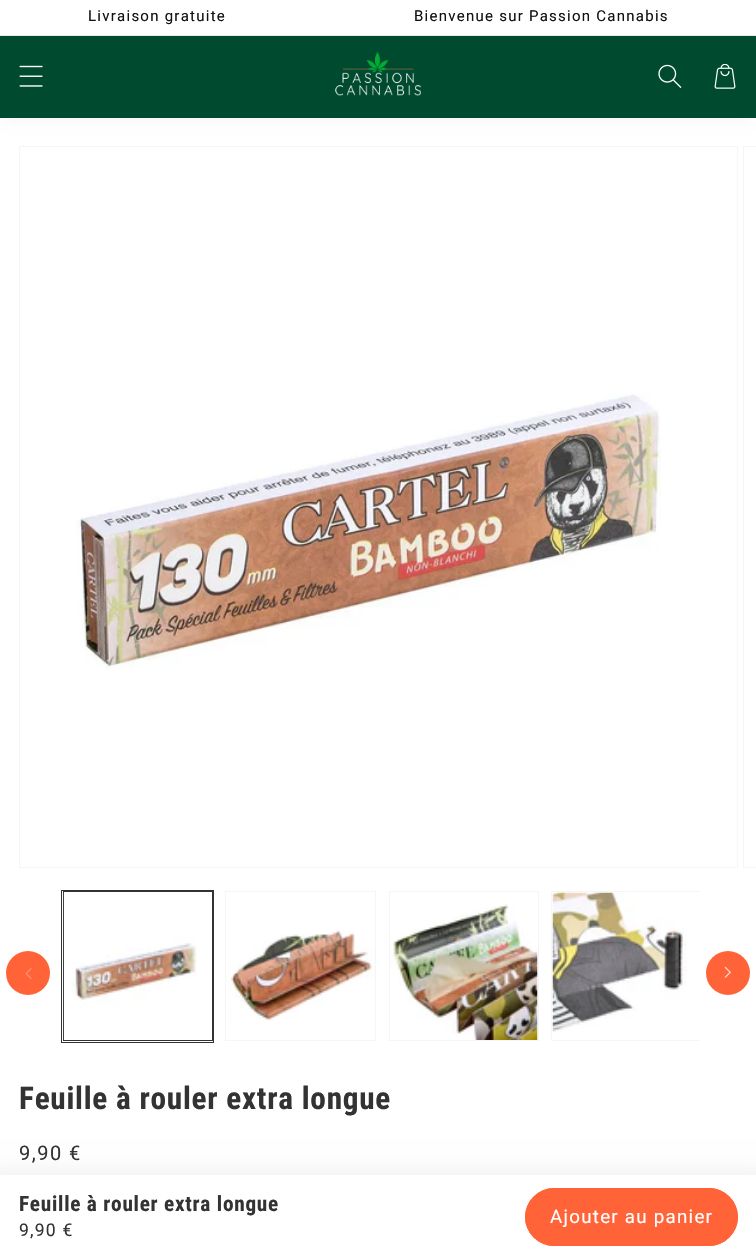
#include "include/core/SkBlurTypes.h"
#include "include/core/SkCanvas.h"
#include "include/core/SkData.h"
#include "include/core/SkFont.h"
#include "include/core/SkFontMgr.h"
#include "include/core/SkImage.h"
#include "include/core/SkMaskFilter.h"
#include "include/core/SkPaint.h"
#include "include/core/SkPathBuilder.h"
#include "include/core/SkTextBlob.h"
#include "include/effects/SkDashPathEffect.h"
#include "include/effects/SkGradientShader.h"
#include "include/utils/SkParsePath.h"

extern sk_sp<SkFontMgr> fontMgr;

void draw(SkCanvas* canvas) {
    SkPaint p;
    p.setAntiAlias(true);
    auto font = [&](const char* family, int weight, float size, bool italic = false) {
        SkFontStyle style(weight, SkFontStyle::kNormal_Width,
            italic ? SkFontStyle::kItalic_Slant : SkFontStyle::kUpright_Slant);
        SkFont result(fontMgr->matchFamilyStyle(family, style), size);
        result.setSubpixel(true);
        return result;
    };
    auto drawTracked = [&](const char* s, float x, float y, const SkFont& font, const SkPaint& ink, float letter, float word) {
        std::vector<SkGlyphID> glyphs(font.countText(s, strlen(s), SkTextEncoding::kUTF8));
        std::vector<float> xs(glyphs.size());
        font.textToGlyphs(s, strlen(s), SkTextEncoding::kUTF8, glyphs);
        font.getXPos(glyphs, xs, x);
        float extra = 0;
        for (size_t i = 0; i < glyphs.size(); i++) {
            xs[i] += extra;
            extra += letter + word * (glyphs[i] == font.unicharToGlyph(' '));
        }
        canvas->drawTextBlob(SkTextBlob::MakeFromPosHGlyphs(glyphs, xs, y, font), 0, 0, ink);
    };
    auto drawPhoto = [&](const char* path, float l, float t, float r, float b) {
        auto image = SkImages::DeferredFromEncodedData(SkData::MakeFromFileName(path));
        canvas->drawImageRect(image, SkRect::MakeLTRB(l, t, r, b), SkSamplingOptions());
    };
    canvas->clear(0xFFFFFFFF);
    p.setColor(0xFFECECEC);
    canvas->drawRect(SkRect::MakeLTRB(0, 35, 756, 36), p);
    auto font1 = font("Roboto", 400, 15);
    p.setColor(0xFF121212);
    drawTracked("Livraison gratuite", 88, 21, font1, p, 1.25f, 0);
    drawTracked("Bienvenue sur Passion Cannabis", 414, 21, font1, p, 1.25f, 0);
    p.setColor(0x0D000000);
    p.setMaskFilter(SkMaskFilter::MakeBlur(kNormal_SkBlurStyle, 6));
    canvas->drawRect(SkRect::MakeLTRB(6, 49, 750, 118), p);
    p.setMaskFilter(nullptr);
    p.setColor(0xFF004A2F);
    canvas->drawRect(SkRect::MakeLTRB(0, 36, 756, 118), p);
    drawPhoto("media/1.png", 19, 65, 43, 87);
    drawPhoto("media/2.png", 335, 52, 421, 96);
    drawPhoto("media/3.png", 658, 64, 682, 88);
    drawPhoto("media/4.png", 714, 64, 736, 89);
    p.setStyle(SkPaint::kStroke_Style);
    p.setStrokeWidth(1);
    p.setColor(0xFFF5F5F5);
    canvas->drawRect(SkRect::MakeLTRB(19.5f, 146.5f, 737.5f, 867.5f), p);
    drawPhoto("media/5.png", 76, 393, 661, 670);
    canvas->drawRect(SkRect::MakeLTRB(743.5f, 146.5f, 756.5f, 867.5f), p);
    p.setStyle(SkPaint::kFill_Style);
    p.setColor(0xFFFF6337);
    canvas->drawCircle(28, 973, 22, p);
    drawPhoto("media/6.png", 25, 968, 32, 979);
    p.setStyle(SkPaint::kStroke_Style);
    p.setColor(0xFF333333);
    canvas->drawRect(SkRect::MakeLTRB(61.5f, 890.5f, 213.5f, 1042.5f), p);
    canvas->drawRect(SkRect::MakeLTRB(63.5f, 891.5f, 212.5f, 1040.5f), p);
    drawPhoto("media/7.png", 63, 893, 197, 1040);
    p.setColor(0xFFF5F5F5);
    canvas->drawRect(SkRect::MakeLTRB(225.5f, 891.5f, 375.5f, 1040.5f), p);
    drawPhoto("media/8.png", 227, 930, 375, 1021);
    canvas->drawRect(SkRect::MakeLTRB(389.5f, 891.5f, 538.5f, 1040.5f), p);
    drawPhoto("media/9.png", 390, 904, 538, 1040);
    canvas->save();
    canvas->clipRect(SkRect::MakeLTRB(56, 885, 700, 1048));
    canvas->drawRect(SkRect::MakeLTRB(551.5f, 891.5f, 700.5f, 1040.5f), p);
    canvas->restore();
    drawPhoto("media/10.png", 552, 892, 687, 1032);
    p.setStyle(SkPaint::kFill_Style);
    p.setColor(0xFFFF6337);
    canvas->drawCircle(728, 973, 22, p);
    drawPhoto("media/11.png", 724, 966, 731, 978);
    auto font2 = font("Roboto Condensed", 700, 31.25f);
    p.setColor(0xFF333333);
    drawTracked("Feuille à rouler extra longue", 19, 1109, font2, p, 0.75f, 0);
    auto font3 = font("Roboto", 400, 20);
    drawTracked("9,90 €", 19, 1160, font3, p, 1.5f, 0);
    p.setColor(0x14000000);
    p.setMaskFilter(SkMaskFilter::MakeBlur(kNormal_SkBlurStyle, 12.5f));
    canvas->drawRect(SkRect::MakeLTRB(-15, 1175, 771, 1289), p);
    p.setMaskFilter(nullptr);
    p.setColor(0xFFFFFFFF);
    canvas->drawRect(SkRect::MakeLTRB(0, 1175, 756, 1258), p);
    auto font4 = font("Roboto Condensed", 700, 21.25f);
    p.setColor(0xFF333333);
    drawTracked("Feuille à rouler extra longue", 19, 1211, font4, p, 0.75f, 0);
    auto font5 = font("Roboto", 400, 17.5f);
    drawTracked("9,90 €", 19, 1236, font5, p, 1.25f, 0);
    p.setColor(0xFFFF6337);
    canvas->drawRoundRect(SkRect::MakeLTRB(525, 1188, 738, 1246), 29, 29, p);
    p.setStyle(SkPaint::kStroke_Style);
    canvas->drawRoundRect(SkRect::MakeLTRB(525.5f, 1188.5f, 737.5f, 1245.5f), 28.5f, 28.5f, p);
    auto font6 = font("Roboto", 400, 18.75f);
    p.setStyle(SkPaint::kFill_Style);
    p.setColor(0xFFFFFFFF);
    drawTracked("Ajouter au panier", 550, 1223, font6, p, 1.25f, 0);
}
